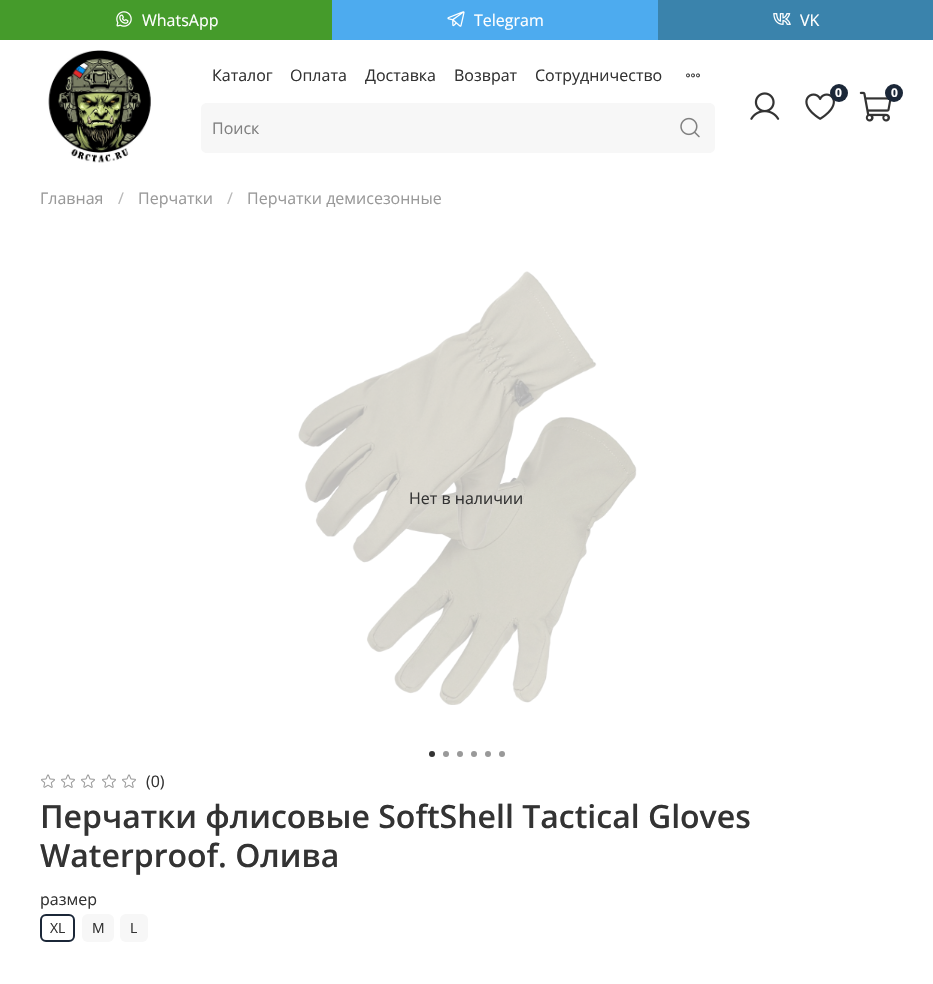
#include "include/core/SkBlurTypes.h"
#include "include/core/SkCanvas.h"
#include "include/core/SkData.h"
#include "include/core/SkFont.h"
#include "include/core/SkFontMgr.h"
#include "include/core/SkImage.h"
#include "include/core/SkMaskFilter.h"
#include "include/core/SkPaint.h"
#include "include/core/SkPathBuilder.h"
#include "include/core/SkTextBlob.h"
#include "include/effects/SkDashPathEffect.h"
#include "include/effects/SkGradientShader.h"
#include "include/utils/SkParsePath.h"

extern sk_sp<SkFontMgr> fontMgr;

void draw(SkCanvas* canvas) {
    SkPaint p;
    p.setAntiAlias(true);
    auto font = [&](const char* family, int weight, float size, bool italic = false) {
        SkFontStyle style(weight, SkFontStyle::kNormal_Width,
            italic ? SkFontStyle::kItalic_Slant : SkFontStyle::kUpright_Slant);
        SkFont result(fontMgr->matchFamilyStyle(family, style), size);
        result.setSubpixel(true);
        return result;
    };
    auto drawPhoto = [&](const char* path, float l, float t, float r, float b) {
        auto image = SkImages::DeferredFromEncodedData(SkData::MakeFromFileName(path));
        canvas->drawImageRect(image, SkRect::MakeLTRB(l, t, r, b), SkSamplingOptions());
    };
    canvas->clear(0xFFFFFFFF);
    p.setColor(0xFF459B2B);
    canvas->drawRect(SkRect::MakeLTRB(0, 0, 332, 40), p);
    drawPhoto("media/1.png", 116, 11, 132, 27);
    auto font1 = font("Open Sans", 400, 16);
    p.setColor(0xFFFFFFFF);
    canvas->drawString("WhatsApp", 142, 26, font1, p);
    p.setColor(0xFF4DABEF);
    canvas->drawRect(SkRect::MakeLTRB(332, 0, 658, 40), p);
    drawPhoto("media/2.png", 447, 11, 465, 27);
    p.setColor(0xFFFFFFFF);
    canvas->drawString("Telegram", 474, 26, font1, p);
    p.setColor(0xFF3A83AC);
    canvas->drawRect(SkRect::MakeLTRB(658, 0, 933, 40), p);
    drawPhoto("media/3.png", 773, 13, 791, 25);
    p.setColor(0xFFFFFFFF);
    canvas->drawString("VK", 800, 26, font1, p);
    drawPhoto("media/4.png", 48, 50, 151, 163);
    p.setColor(0xFF333333);
    {
        const struct { const char* s; float x, y; } items[] = {
            {"Каталог", 212, 81},
            {"Оплата", 290, 81},
            {"Доставка", 365, 81},
            {"Возврат", 454, 81},
            {"Сотрудничество", 535, 81},
        };
        for (auto [s, x, y] : items) {
            canvas->drawString(s, x, y, font1, p);
        }
    }
    drawPhoto("media/5.png", 686, 73, 700, 78);
    p.setColor(0xFFF7F7F7);
    canvas->drawPath(SkPathBuilder().moveTo(207, 103).lineTo(665, 103).lineTo(665, 153).lineTo(207, 153).cubicTo(203.5f, 153, 201, 150.5f, 201, 147).lineTo(201, 109).cubicTo(201, 105.5f, 203.5f, 103, 207, 103).close().detach(), p);
    p.setColor(0xFF808080);
    canvas->drawString("Поиск", 212, 134, font1, p);
    p.setColor(0xFFF7F7F7);
    canvas->drawPath(SkPathBuilder().moveTo(665, 103).lineTo(709, 103).cubicTo(712.5f, 103, 715, 105.5f, 715, 109).lineTo(715, 147).cubicTo(715, 150.5f, 712.5f, 153, 709, 153).lineTo(665, 153).close().detach(), p);
    drawPhoto("media/6.png", 680, 117, 700, 138);
    drawPhoto("media/7.png", 750, 92, 780, 120);
    drawPhoto("media/8.png", 805, 93, 835, 120);
    p.setColor(0xFF1B2738);
    canvas->drawCircle(839, 93, 9, p);
    auto font2 = font("Open Sans", 700, 12);
    p.setColor(0xFFFFFFFF);
    canvas->drawString("0", 835, 97, font2, p);
    drawPhoto("media/9.png", 859, 91, 892, 122);
    p.setColor(0xFF1B2738);
    canvas->drawCircle(894, 93, 9, p);
    p.setColor(0xFFFFFFFF);
    canvas->drawString("0", 891, 97, font2, p);
    p.setColor(0xFF999999);
    canvas->drawString("Главная", 40, 204, font1, p);
    p.setColor(0xFFB8B8B8);
    canvas->drawString("/", 118, 204, font1, p);
    p.setColor(0xFF999999);
    canvas->drawString("Перчатки", 138, 204, font1, p);
    p.setColor(0xFFB8B8B8);
    canvas->drawString("/", 227, 204, font1, p);
    p.setColor(0xFF999999);
    canvas->drawString("Перчатки демисезонные", 247, 204, font1, p);
    drawPhoto("media/10.png", 298, 271, 637, 705);
    p.setColor(0xFF333333);
    canvas->drawCircle(432, 754, 3, p);
    p.setColor(0xFF999999);
    canvas->drawCircle(446, 754, 3, p);
    canvas->drawCircle(460, 754, 3, p);
    canvas->drawCircle(474, 754, 3, p);
    canvas->drawCircle(488, 754, 3, p);
    canvas->drawCircle(502, 754, 3, p);
    p.setColor(0xFF333333);
    canvas->drawString("Нет в наличии", 409, 504, font1, p);
    drawPhoto("media/11.png", 41, 774, 55, 788);
    drawPhoto("media/11.png", 61, 774, 75, 788);
    drawPhoto("media/11.png", 81, 774, 95, 788);
    drawPhoto("media/11.png", 102, 774, 116, 788);
    drawPhoto("media/11.png", 122, 774, 136, 788);
    canvas->drawString("(0)", 146, 787, font1, p);
    auto font3 = font("Open Sans", 600, 32);
    canvas->drawString("Перчатки флисовые SoftShell Tactical Gloves", 40, 828, font3, p);
    canvas->drawString("Waterproof. Олива", 40, 867, font3, p);
    canvas->drawString("размер", 40, 905, font1, p);
    p.setStyle(SkPaint::kStroke_Style);
    p.setStrokeWidth(2);
    p.setColor(0xFF1B2738);
    canvas->drawRoundRect(SkRect::MakeLTRB(41, 915, 74, 941), 5, 5, p);
    auto font4 = font("Open Sans", 400, 14);
    p.setStyle(SkPaint::kFill_Style);
    p.setColor(0xFF333333);
    canvas->drawString("XL", 50, 933, font4, p);
    p.setColor(0xFFF7F7F7);
    canvas->drawRoundRect(SkRect::MakeLTRB(82, 914, 114, 942), 6, 6, p);
    p.setColor(0xFF333333);
    canvas->drawString("M", 92, 933, font4, p);
    p.setColor(0xFFF7F7F7);
    canvas->drawRoundRect(SkRect::MakeLTRB(120, 914, 148, 942), 6, 6, p);
    p.setColor(0xFF333333);
    canvas->drawString("L", 130, 933, font4, p);
}
